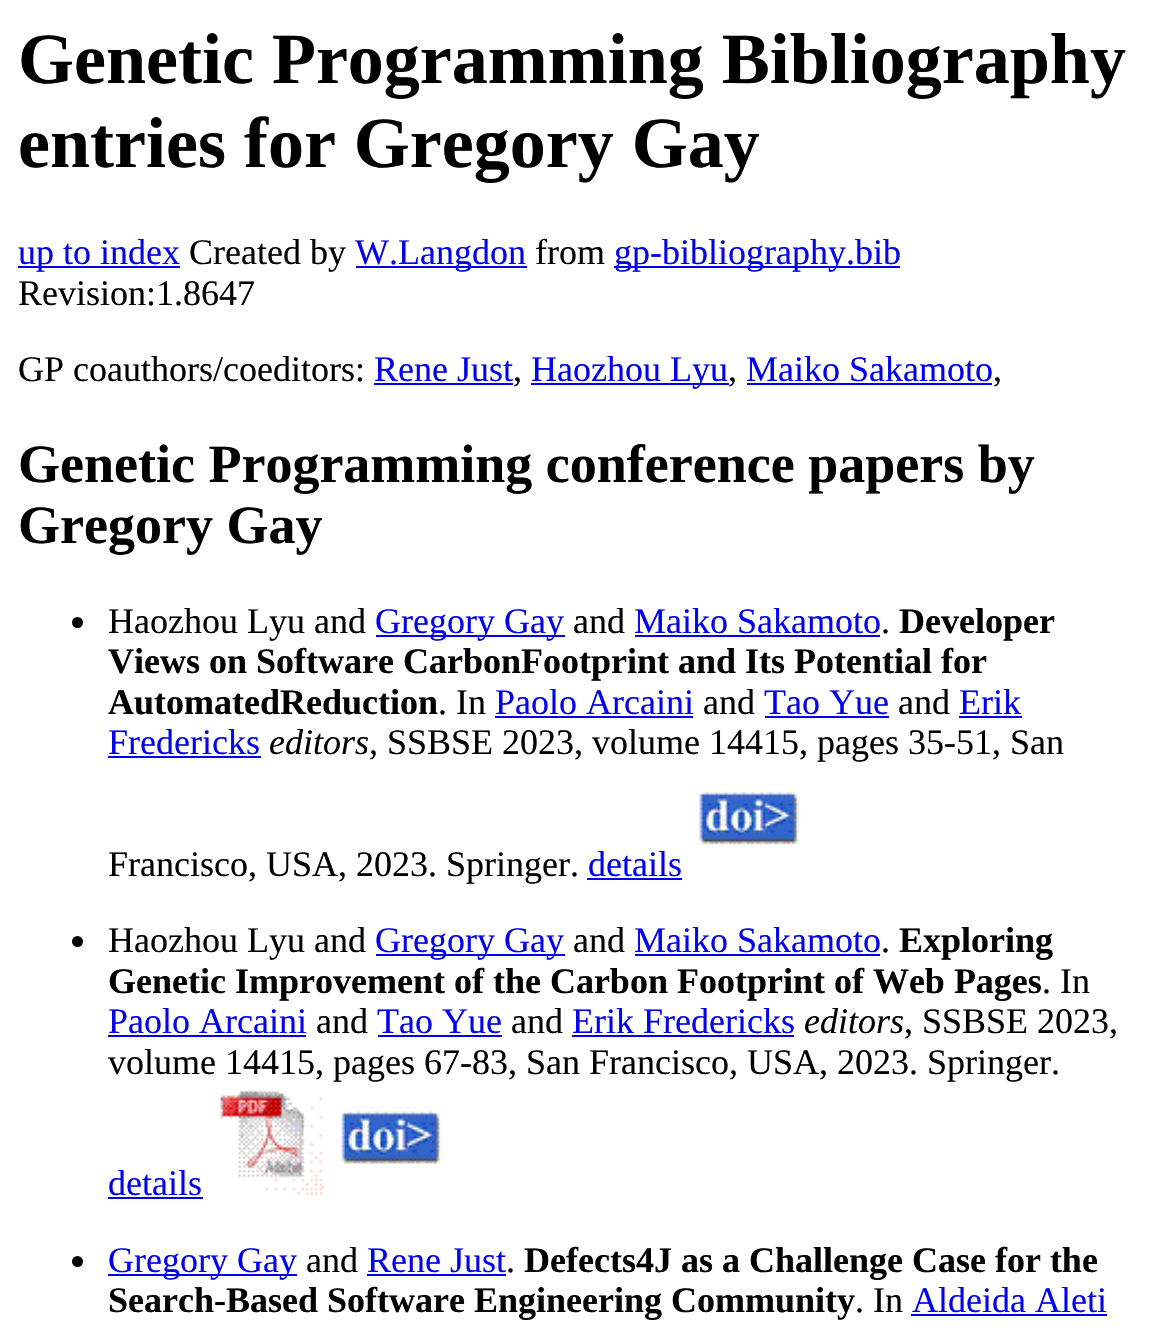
#include "include/core/SkBlurTypes.h"
#include "include/core/SkCanvas.h"
#include "include/core/SkData.h"
#include "include/core/SkFont.h"
#include "include/core/SkFontMgr.h"
#include "include/core/SkImage.h"
#include "include/core/SkMaskFilter.h"
#include "include/core/SkPaint.h"
#include "include/core/SkPathBuilder.h"
#include "include/core/SkTextBlob.h"
#include "include/effects/SkDashPathEffect.h"
#include "include/effects/SkGradientShader.h"
#include "include/utils/SkParsePath.h"

extern sk_sp<SkFontMgr> fontMgr;

void draw(SkCanvas* canvas) {
    SkPaint p;
    p.setAntiAlias(true);
    auto font = [&](const char* family, int weight, float size, bool italic = false) {
        SkFontStyle style(weight, SkFontStyle::kNormal_Width,
            italic ? SkFontStyle::kItalic_Slant : SkFontStyle::kUpright_Slant);
        SkFont result(fontMgr->matchFamilyStyle(family, style), size);
        result.setSubpixel(true);
        return result;
    };
    auto drawPhoto = [&](const char* path, float l, float t, float r, float b) {
        auto image = SkImages::DeferredFromEncodedData(SkData::MakeFromFileName(path));
        canvas->drawImageRect(image, SkRect::MakeLTRB(l, t, r, b), SkSamplingOptions());
    };
    canvas->clear(0xFFFFFFFF);
    auto font1 = font("Liberation Serif", 700, 72);
    p.setColor(0xFF000000);
    canvas->drawString("Genetic Programming Bibliography", 18, 83, font1, p);
    canvas->drawString("entries for Gregory Gay", 18, 167, font1, p);
    p.setColor(0xFF0000EE);
    canvas->drawRect(SkRect::MakeLTRB(18, 266, 180, 268), p);
    auto font2 = font("Liberation Serif", 400, 36);
    canvas->drawString("up to index", 18, 264, font2, p);
    p.setColor(0xFF000000);
    canvas->drawString("Created by", 189, 264, font2, p);
    p.setColor(0xFF0000EE);
    canvas->drawRect(SkRect::MakeLTRB(356, 266, 527, 268), p);
    canvas->drawString("W.Langdon", 355, 264, font2, p);
    p.setColor(0xFF000000);
    canvas->drawString("from", 535, 264, font2, p);
    p.setColor(0xFF0000EE);
    canvas->drawRect(SkRect::MakeLTRB(614, 266, 900, 268), p);
    canvas->drawString("gp-bibliography.bib", 614, 264, font2, p);
    p.setColor(0xFF000000);
    canvas->drawString("Revision:1.8647", 18, 305, font2, p);
    canvas->drawString("GP coauthors/coeditors:", 18, 381, font2, p);
    p.setColor(0xFF0000EE);
    canvas->drawString("Rene Just", 374, 381, font2, p);
    canvas->drawRect(SkRect::MakeLTRB(374, 383, 513, 385), p);
    p.setColor(0xFF000000);
    canvas->drawString(",", 513, 381, font2, p);
    p.setColor(0xFF0000EE);
    canvas->drawRect(SkRect::MakeLTRB(531, 383, 729, 385), p);
    canvas->drawString("Haozhou Lyu", 531, 381, font2, p);
    p.setColor(0xFF000000);
    canvas->drawString(",", 728, 381, font2, p);
    p.setColor(0xFF0000EE);
    canvas->drawString("Maiko Sakamoto", 746, 381, font2, p);
    canvas->drawRect(SkRect::MakeLTRB(747, 383, 992, 385), p);
    p.setColor(0xFF000000);
    canvas->drawString(",", 993, 381, font2, p);
    auto font3 = font("Liberation Serif", 700, 54);
    canvas->drawString("Genetic Programming conference papers by", 18, 482, font3, p);
    canvas->drawString("Gregory Gay", 18, 543, font3, p);
    canvas->drawCircle(77.5f, 622.5f, 5.5f, p);
    canvas->drawString("Haozhou Lyu and", 108, 633, font2, p);
    p.setColor(0xFF0000EE);
    canvas->drawRect(SkRect::MakeLTRB(376, 635, 565, 637), p);
    canvas->drawString("Gregory Gay", 375, 633, font2, p);
    p.setColor(0xFF000000);
    canvas->drawString("and", 573, 633, font2, p);
    p.setColor(0xFF0000EE);
    canvas->drawString("Maiko Sakamoto", 634, 633, font2, p);
    canvas->drawRect(SkRect::MakeLTRB(635, 635, 880, 637), p);
    auto font4 = font("Liberation Serif", 700, 36);
    p.setColor(0xFF000000);
    canvas->drawString("Developer", 899, 633, font4, p);
    canvas->drawString(".", 881, 633, font2, p);
    canvas->drawString("Views on Software CarbonFootprint and Its Potential for", 108, 673, font4, p);
    canvas->drawString("AutomatedReduction", 108, 714, font4, p);
    canvas->drawString(". In", 438, 714, font2, p);
    p.setColor(0xFF0000EE);
    canvas->drawString("Paolo Arcaini", 495, 714, font2, p);
    canvas->drawRect(SkRect::MakeLTRB(495, 716, 693, 718), p);
    p.setColor(0xFF000000);
    canvas->drawString("and", 703, 714, font2, p);
    p.setColor(0xFF0000EE);
    canvas->drawString("Tao Yue", 764, 714, font2, p);
    canvas->drawRect(SkRect::MakeLTRB(765, 716, 889, 718), p);
    p.setColor(0xFF000000);
    canvas->drawString("and", 898, 714, font2, p);
    p.setColor(0xFF0000EE);
    canvas->drawString("Erik", 959, 714, font2, p);
    canvas->drawRect(SkRect::MakeLTRB(959, 716, 1022, 718), p);
    canvas->drawString("Fredericks", 108, 754, font2, p);
    canvas->drawRect(SkRect::MakeLTRB(108, 756, 261, 758), p);
    auto font5 = font("Liberation Serif", 400, 36, true);
    p.setColor(0xFF000000);
    canvas->drawString("editors", 269, 754, font5, p);
    canvas->drawString(", SSBSE 2023, volume 14415, pages 35-51, San", 369, 754, font2, p);
    drawPhoto("media/1.png", 699, 791, 800, 845);
    canvas->drawString("Francisco, USA, 2023. Springer.", 108, 876, font2, p);
    p.setColor(0xFF0000EE);
    canvas->drawString("details", 588, 876, font2, p);
    canvas->drawRect(SkRect::MakeLTRB(587, 878, 682, 880), p);
    p.setColor(0xFF000000);
    canvas->drawCircle(77.5f, 941.5f, 5.5f, p);
    canvas->drawString("Haozhou Lyu and", 108, 952, font2, p);
    p.setColor(0xFF0000EE);
    canvas->drawRect(SkRect::MakeLTRB(376, 954, 565, 956), p);
    canvas->drawString("Gregory Gay", 375, 952, font2, p);
    p.setColor(0xFF000000);
    canvas->drawString("and", 573, 952, font2, p);
    p.setColor(0xFF0000EE);
    canvas->drawString("Maiko Sakamoto", 634, 952, font2, p);
    canvas->drawRect(SkRect::MakeLTRB(635, 954, 880, 956), p);
    p.setColor(0xFF000000);
    canvas->drawString("Exploring", 899, 952, font4, p);
    canvas->drawString(".", 881, 952, font2, p);
    canvas->drawString("Genetic Improvement of the Carbon Footprint of Web Pages", 108, 993, font4, p);
    canvas->drawString(". In", 1042, 993, font2, p);
    p.setColor(0xFF0000EE);
    canvas->drawString("Paolo Arcaini", 108, 1033, font2, p);
    canvas->drawRect(SkRect::MakeLTRB(108, 1035, 306, 1037), p);
    p.setColor(0xFF000000);
    canvas->drawString("and", 316, 1033, font2, p);
    p.setColor(0xFF0000EE);
    canvas->drawString("Tao Yue", 377, 1033, font2, p);
    canvas->drawRect(SkRect::MakeLTRB(378, 1035, 502, 1037), p);
    p.setColor(0xFF000000);
    canvas->drawString("and", 511, 1033, font2, p);
    p.setColor(0xFF0000EE);
    canvas->drawString("Erik Fredericks", 572, 1033, font2, p);
    canvas->drawRect(SkRect::MakeLTRB(572, 1035, 794, 1037), p);
    p.setColor(0xFF000000);
    canvas->drawString("editors", 804, 1033, font5, p);
    canvas->drawString(", SSBSE 2023,", 904, 1033, font2, p);
    canvas->drawString("volume 14415, pages 67-83, San Francisco, USA, 2023. Springer.", 108, 1074, font2, p);
    drawPhoto("media/2.png", 220, 1090, 324, 1195);
    drawPhoto("media/3.png", 341, 1111, 442, 1164);
    p.setColor(0xFF0000EE);
    canvas->drawString("details", 108, 1195, font2, p);
    canvas->drawRect(SkRect::MakeLTRB(108, 1197, 203, 1199), p);
    p.setColor(0xFF000000);
    canvas->drawCircle(77.5f, 1261.5f, 5.5f, p);
    p.setColor(0xFF0000EE);
    canvas->drawRect(SkRect::MakeLTRB(108, 1274, 297, 1276), p);
    canvas->drawString("Gregory Gay", 108, 1272, font2, p);
    p.setColor(0xFF000000);
    canvas->drawString("and", 306, 1272, font2, p);
    p.setColor(0xFF0000EE);
    canvas->drawString("Rene Just", 367, 1272, font2, p);
    canvas->drawRect(SkRect::MakeLTRB(367, 1274, 506, 1276), p);
    p.setColor(0xFF000000);
    canvas->drawString("Defects4J as a Challenge Case for the", 524, 1272, font4, p);
    canvas->drawString(".", 506, 1272, font2, p);
    canvas->drawString("Search-Based Software Engineering Community", 108, 1312, font4, p);
    canvas->drawString(". In", 855, 1312, font2, p);
    p.setColor(0xFF0000EE);
    canvas->drawString("Aldeida Aleti", 912, 1312, font2, p);
    canvas->drawRect(SkRect::MakeLTRB(911, 1314, 1107, 1316), p);
}
